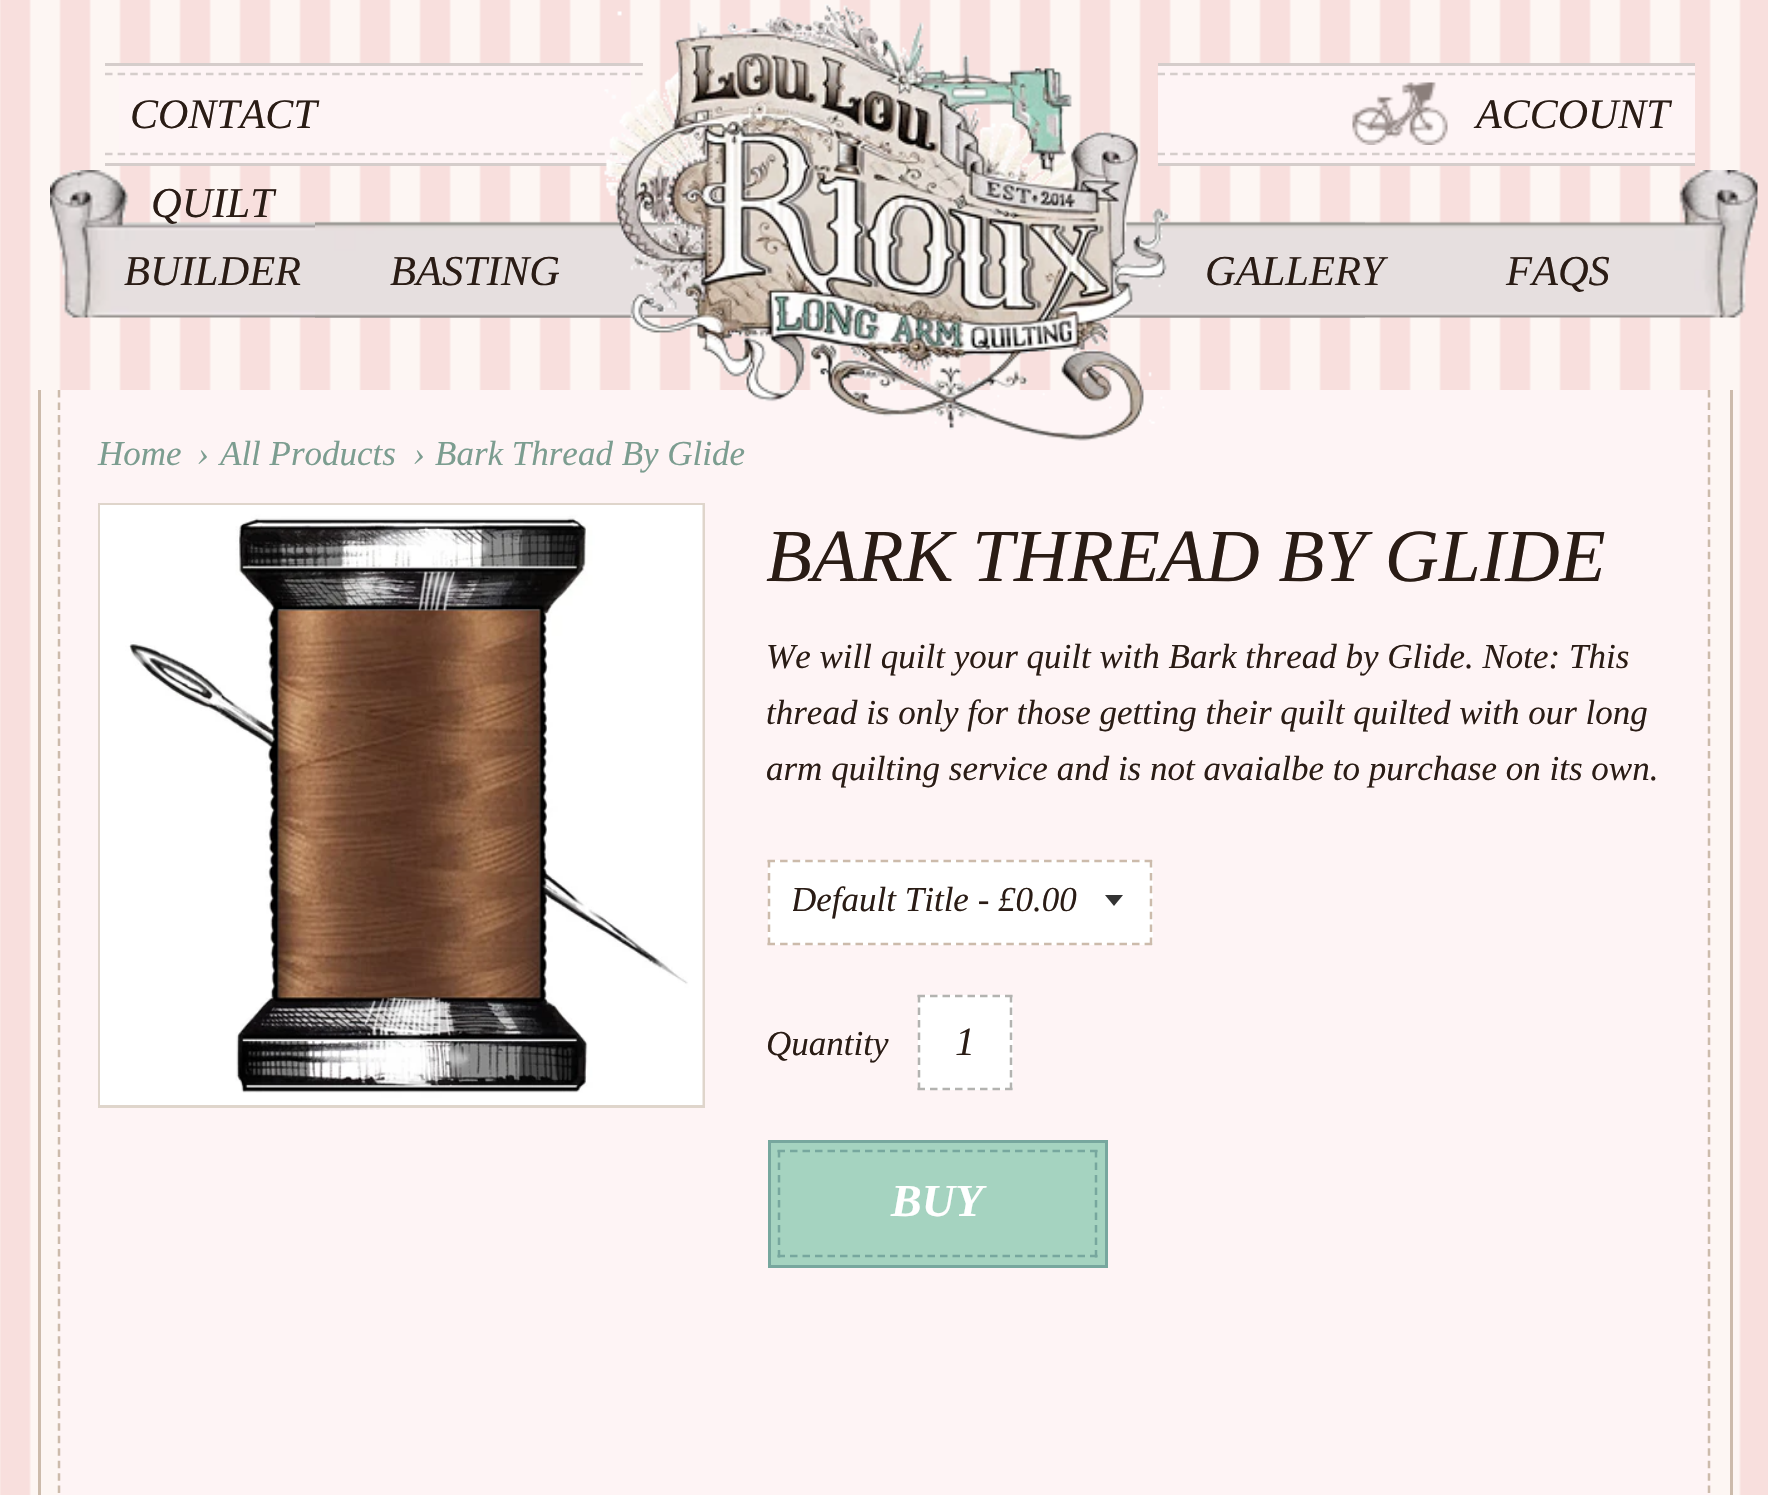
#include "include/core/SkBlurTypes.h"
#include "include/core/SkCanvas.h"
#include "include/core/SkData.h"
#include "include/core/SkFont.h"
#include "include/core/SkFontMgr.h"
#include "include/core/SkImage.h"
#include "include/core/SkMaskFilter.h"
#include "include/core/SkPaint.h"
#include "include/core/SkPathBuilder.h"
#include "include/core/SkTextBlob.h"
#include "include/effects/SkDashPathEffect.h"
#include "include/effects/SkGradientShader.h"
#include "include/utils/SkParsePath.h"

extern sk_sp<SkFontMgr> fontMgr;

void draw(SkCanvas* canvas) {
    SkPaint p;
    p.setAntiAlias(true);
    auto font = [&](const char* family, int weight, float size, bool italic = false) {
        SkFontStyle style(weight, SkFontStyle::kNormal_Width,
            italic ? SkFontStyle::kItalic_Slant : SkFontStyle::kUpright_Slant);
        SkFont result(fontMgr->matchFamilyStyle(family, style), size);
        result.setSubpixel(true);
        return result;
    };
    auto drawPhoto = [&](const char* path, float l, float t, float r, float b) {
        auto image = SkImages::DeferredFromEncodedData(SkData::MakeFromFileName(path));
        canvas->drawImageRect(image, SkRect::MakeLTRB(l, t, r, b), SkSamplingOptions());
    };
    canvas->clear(0xFFFFFFFF);
    drawPhoto("media/1.png", 0, 0, 1768, 1495);
    {
        const struct { float l, t, r, b; SkColor color; } items[] = {
            {119, 66, 631, 163, 0xFFFEF4F5},
            {105, 63, 643, 66, 0xFFD5CDCB},
            {105, 163, 630, 166, 0xFFD5CDCB},
        };
        for (auto [l, t, r, b, color] : items) {
            p.setColor(color);
            canvas->drawRect(SkRect::MakeLTRB(l, t, r, b), p);
        }
    }
    p.setStyle(SkPaint::kStroke_Style);
    p.setStrokeWidth(2.5f);
    p.setPathEffect(SkDashPathEffect::Make({{7.5f, 5.12f}}, 0));
    canvas->drawPath(SkPathBuilder().moveTo(105, 74).lineTo(642.5f, 74).detach(), p);
    p.setPathEffect(nullptr);
    p.setPathEffect(SkDashPathEffect::Make({{7.5f, 5.12f}}, 0));
    canvas->drawPath(SkPathBuilder().moveTo(105, 154).lineTo(642.5f, 154).detach(), p);
    p.setPathEffect(nullptr);
    auto font1 = font("Liberation Serif", 400, 42, true);
    p.setStyle(SkPaint::kFill_Style);
    p.setColor(0xFF2A1C15);
    canvas->drawString("CONTACT", 130, 128, font1, p);
    drawPhoto("media/2.png", 50, 170, 1365, 318);
    auto font2 = font("Liberation Serif", 400, 42.5f, true);
    canvas->drawString("QUILT", 151, 217, font2, p);
    canvas->drawString("BUILDER", 124, 285, font2, p);
    drawPhoto("media/5.png", 315, 170, 1758, 318);
    canvas->drawString("BASTING", 390, 285, font2, p);
    {
        const struct { float l, t, r, b; SkColor color; } items[] = {
            {1158, 66, 1695, 163, 0xFFFEF4F5},
            {1158, 63, 1695, 66, 0xFFD5CDCB},
            {1158, 163, 1695, 166, 0xFFD5CDCB},
        };
        for (auto [l, t, r, b, color] : items) {
            p.setColor(color);
            canvas->drawRect(SkRect::MakeLTRB(l, t, r, b), p);
        }
    }
    p.setStyle(SkPaint::kStroke_Style);
    p.setPathEffect(SkDashPathEffect::Make({{7.5f, 5.12f}}, 0));
    canvas->drawPath(SkPathBuilder().moveTo(1157.5f, 74).lineTo(1695, 74).detach(), p);
    p.setPathEffect(nullptr);
    p.setPathEffect(SkDashPathEffect::Make({{7.5f, 5.12f}}, 0));
    canvas->drawPath(SkPathBuilder().moveTo(1157.5f, 154).lineTo(1695, 154).detach(), p);
    p.setPathEffect(nullptr);
    p.setStyle(SkPaint::kFill_Style);
    p.setColor(0xFFFEF4F5);
    canvas->drawRect(SkRect::MakeLTRB(59, 390, 1711, 1495), p);
    auto font3 = font("Liberation Serif", 400, 35, true);
    p.setColor(0xFF7C9D90);
    canvas->drawString("Bark Thread By Glide", 435, 465, font3, p);
    drawPhoto("media/3.png", 604, 4, 1171, 441);
    drawPhoto("media/4.png", 1352, 82, 1448, 145);
    p.setColor(0xFF2A1C15);
    canvas->drawString("ACCOUNT", 1476, 128, font1, p);
    canvas->drawString("GALLERY", 1205, 285, font2, p);
    canvas->drawString("FAQS", 1506, 285, font2, p);
    p.setColor(0xFFCCBBAB);
    canvas->drawRect(SkRect::MakeLTRB(1730, 390, 1733, 1495), p);
    canvas->drawRect(SkRect::MakeLTRB(38, 390, 41, 1495), p);
    p.setStyle(SkPaint::kStroke_Style);
    p.setPathEffect(SkDashPathEffect::Make({{7.5f, 4.95f}}, 0));
    canvas->drawPath(SkPathBuilder().moveTo(1709, 390).lineTo(1709, 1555).detach(), p);
    p.setPathEffect(nullptr);
    p.setPathEffect(SkDashPathEffect::Make({{7.5f, 4.95f}}, 0));
    canvas->drawPath(SkPathBuilder().moveTo(59, 390).lineTo(59, 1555).detach(), p);
    p.setPathEffect(nullptr);
    p.setStyle(SkPaint::kFill_Style);
    p.setColor(0xFF7C9D90);
    {
        const struct { const char* s; float x, y; } items[] = {
            {"Home", 98, 465},
            {"›", 197, 465},
            {"All Products", 220, 465},
            {"›", 413, 465},
        };
        for (auto [s, x, y] : items) {
            canvas->drawString(s, x, y, font3, p);
        }
    }
    p.setStyle(SkPaint::kStroke_Style);
    p.setStrokeWidth(3);
    p.setColor(0xFFDFD5CB);
    canvas->drawRect(SkRect::MakeLTRB(99.5f, 504.5f, 703.5f, 1106.5f), p);
    drawPhoto("media/6.png", 100, 505, 703, 1105);
    auto font4 = font("Liberation Serif", 400, 75, true);
    p.setStyle(SkPaint::kFill_Style);
    p.setColor(0xFF2A1C15);
    canvas->drawString("BARK THREAD BY GLIDE", 766, 581, font4, p);
    {
        const struct { const char* s; float x, y; } items[] = {
            {"We will quilt your quilt with Bark thread by Glide. Note: This", 766, 668},
            {"thread is only for those getting their quilt quilted with our long", 766, 724},
            {"arm quilting service and is not avaialbe to purchase on its own.", 766, 780},
        };
        for (auto [s, x, y] : items) {
            canvas->drawString(s, x, y, font3, p);
        }
    }
    p.setColor(0xFFFFFFFF);
    canvas->drawRect(SkRect::MakeLTRB(768, 860, 1153, 945), p);
    p.setColor(0xFF333333);
    canvas->drawPath(SkPathBuilder().moveTo(1105, 895).lineTo(1114, 906).lineTo(1123, 895).close().detach(), p);
    p.setStyle(SkPaint::kStroke_Style);
    p.setStrokeWidth(2.5f);
    p.setColor(0xFFCCBBAB);
    p.setPathEffect(SkDashPathEffect::Make({{7.5f, 5.07f}}, 0));
    canvas->drawPath(SkPathBuilder().moveTo(767.5f, 861).lineTo(1152.5f, 861).detach(), p);
    p.setPathEffect(nullptr);
    p.setPathEffect(SkDashPathEffect::Make({{7.5f, 5.42f}}, 0));
    canvas->drawPath(SkPathBuilder().moveTo(1151, 860).lineTo(1151, 945).detach(), p);
    p.setPathEffect(nullptr);
    p.setPathEffect(SkDashPathEffect::Make({{7.5f, 5.07f}}, 0));
    canvas->drawPath(SkPathBuilder().moveTo(767.5f, 944).lineTo(1152.5f, 944).detach(), p);
    p.setPathEffect(nullptr);
    p.setPathEffect(SkDashPathEffect::Make({{7.5f, 5.42f}}, 0));
    canvas->drawPath(SkPathBuilder().moveTo(769, 860).lineTo(769, 945).detach(), p);
    p.setPathEffect(nullptr);
    canvas->save();
    canvas->clipRect(SkRect::MakeLTRB(793, 875, 1080, 930));
    p.setStyle(SkPaint::kFill_Style);
    p.setColor(0xFF2A1C15);
    canvas->drawString("Default Title - £0.00", 791, 911, font3, p);
    canvas->restore();
    canvas->drawString("Quantity", 766, 1055, font3, p);
    p.setColor(0xFFFFFFFF);
    canvas->drawRect(SkRect::MakeLTRB(918, 995, 1013, 1090), p);
    p.setStyle(SkPaint::kStroke_Style);
    p.setColor(0xFFB3B3B0);
    p.setPathEffect(SkDashPathEffect::Make({{7.5f, 5}}, 0));
    canvas->drawPath(SkPathBuilder().moveTo(917.5f, 996).lineTo(1012.5f, 996).detach(), p);
    p.setPathEffect(nullptr);
    p.setPathEffect(SkDashPathEffect::Make({{7.5f, 5}}, 0));
    canvas->drawPath(SkPathBuilder().moveTo(1011, 995).lineTo(1011, 1090).detach(), p);
    p.setPathEffect(nullptr);
    p.setPathEffect(SkDashPathEffect::Make({{7.5f, 5}}, 0));
    canvas->drawPath(SkPathBuilder().moveTo(917.5f, 1089).lineTo(1012.5f, 1089).detach(), p);
    p.setPathEffect(nullptr);
    p.setPathEffect(SkDashPathEffect::Make({{7.5f, 5}}, 0));
    canvas->drawPath(SkPathBuilder().moveTo(919, 995).lineTo(919, 1090).detach(), p);
    p.setPathEffect(nullptr);
    auto font5 = font("Liberation Serif", 400, 40, true);
    p.setStyle(SkPaint::kFill_Style);
    p.setColor(0xFF2A1C15);
    canvas->drawString("1", 955, 1055, font5, p);
    p.setColor(0xFFA5D3C0);
    canvas->drawRect(SkRect::MakeLTRB(769.5f, 1141.5f, 1106.5f, 1266.5f), p);
    p.setStyle(SkPaint::kStroke_Style);
    p.setStrokeWidth(3);
    p.setColor(0xFF77A79E);
    canvas->drawRect(SkRect::MakeLTRB(769.5f, 1141.5f, 1106.5f, 1266.5f), p);
    p.setStrokeWidth(2.5f);
    p.setPathEffect(SkDashPathEffect::Make({{7.5f, 5}}, 0));
    canvas->drawPath(SkPathBuilder().moveTo(777.5f, 1151).lineTo(1097.5f, 1151).detach(), p);
    p.setPathEffect(nullptr);
    p.setPathEffect(SkDashPathEffect::Make({{7.5f, 5}}, 0));
    canvas->drawPath(SkPathBuilder().moveTo(1096, 1150).lineTo(1096, 1257.5f).detach(), p);
    p.setPathEffect(nullptr);
    p.setPathEffect(SkDashPathEffect::Make({{7.5f, 5}}, 0));
    canvas->drawPath(SkPathBuilder().moveTo(777.5f, 1256).lineTo(1097.5f, 1256).detach(), p);
    p.setPathEffect(nullptr);
    p.setPathEffect(SkDashPathEffect::Make({{7.5f, 5}}, 0));
    canvas->drawPath(SkPathBuilder().moveTo(779, 1150).lineTo(779, 1257.5f).detach(), p);
    p.setPathEffect(nullptr);
    auto font6 = font("Liberation Serif", 700, 46, true);
    p.setStyle(SkPaint::kFill_Style);
    p.setColor(0xFFFFFFFF);
    canvas->drawString("BUY", 891, 1216, font6, p);
}
